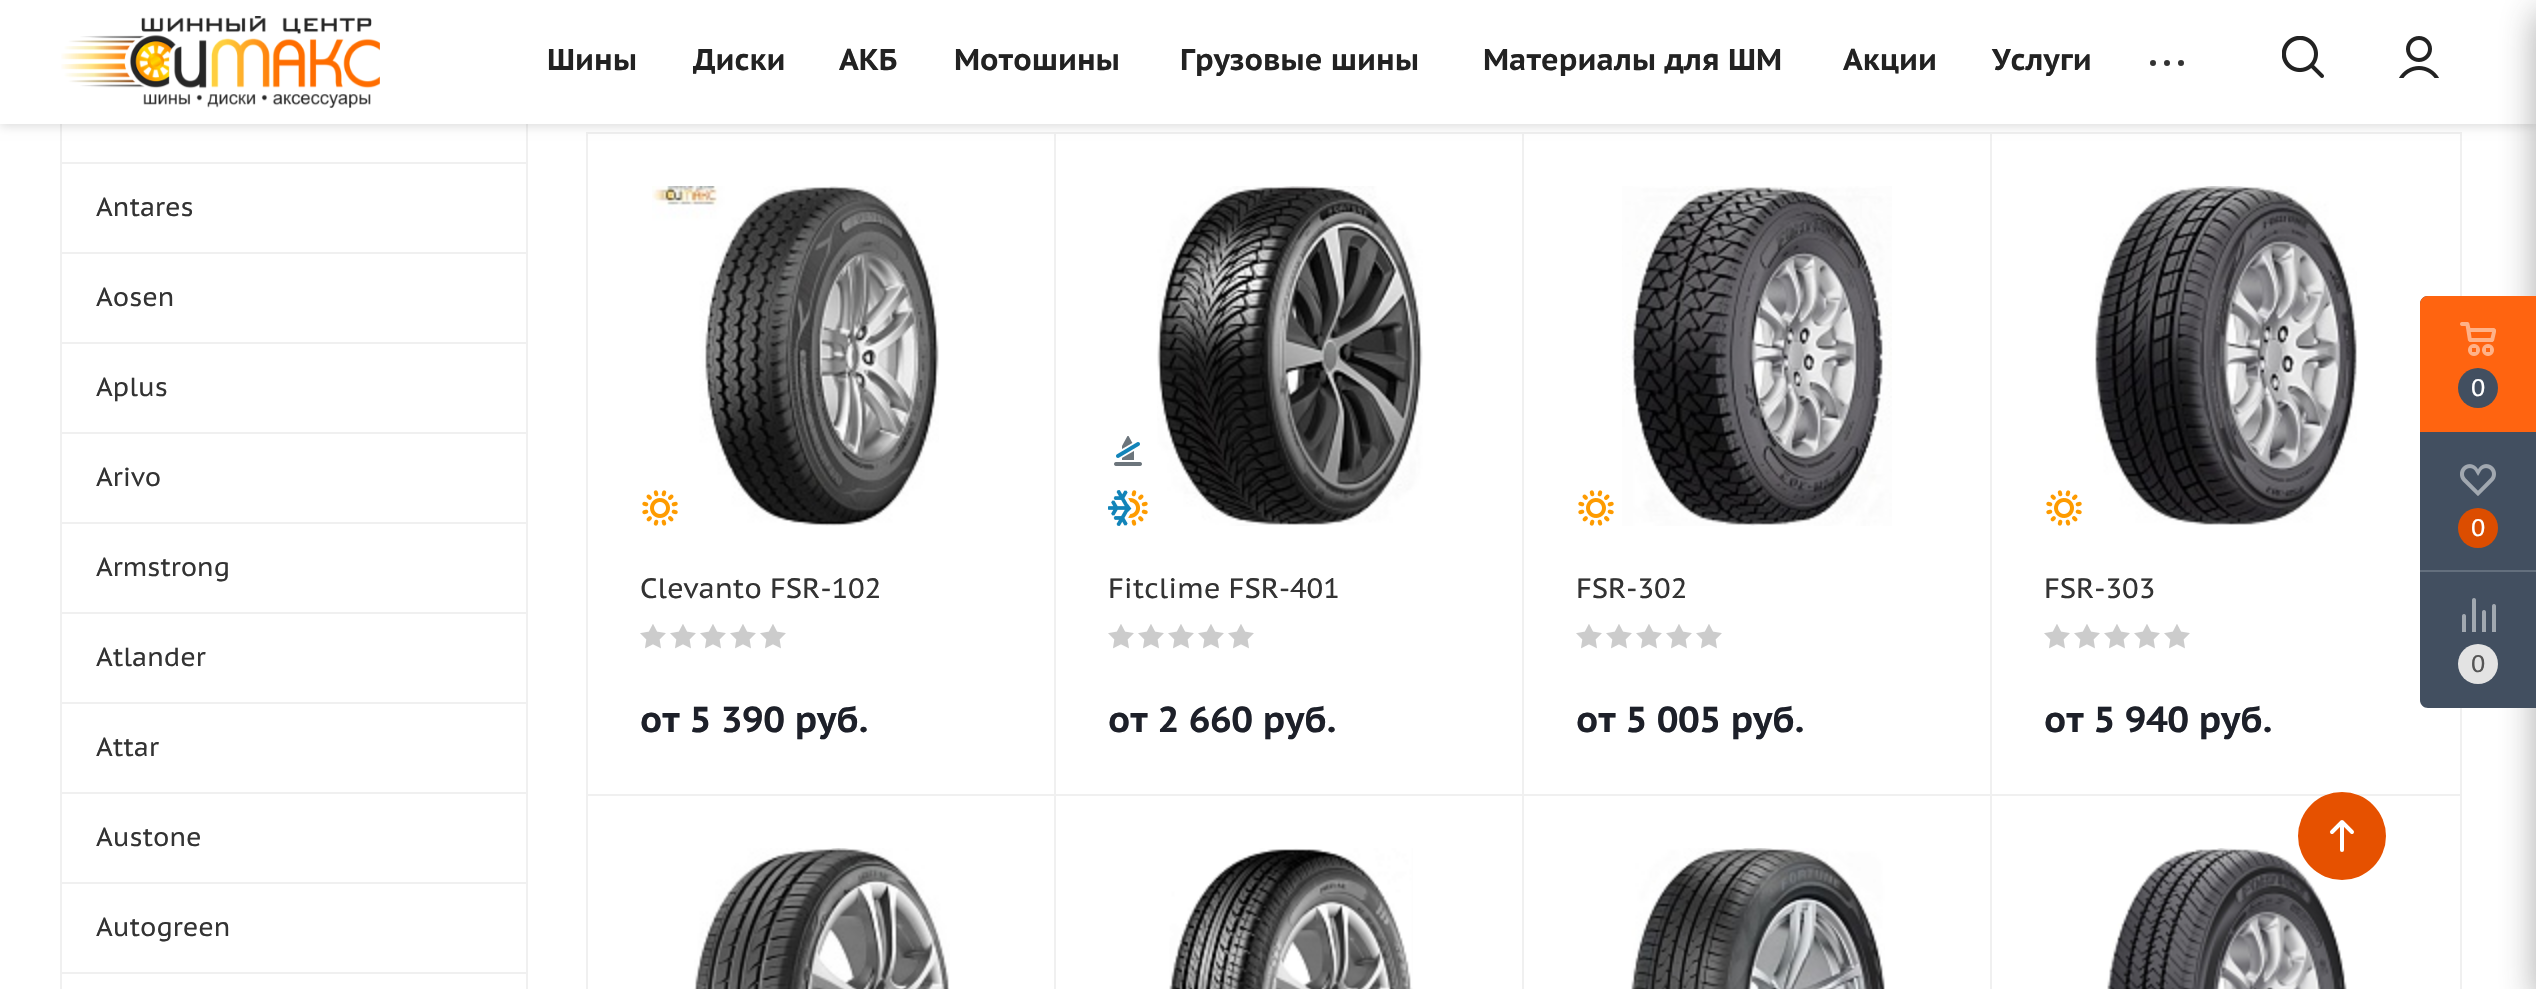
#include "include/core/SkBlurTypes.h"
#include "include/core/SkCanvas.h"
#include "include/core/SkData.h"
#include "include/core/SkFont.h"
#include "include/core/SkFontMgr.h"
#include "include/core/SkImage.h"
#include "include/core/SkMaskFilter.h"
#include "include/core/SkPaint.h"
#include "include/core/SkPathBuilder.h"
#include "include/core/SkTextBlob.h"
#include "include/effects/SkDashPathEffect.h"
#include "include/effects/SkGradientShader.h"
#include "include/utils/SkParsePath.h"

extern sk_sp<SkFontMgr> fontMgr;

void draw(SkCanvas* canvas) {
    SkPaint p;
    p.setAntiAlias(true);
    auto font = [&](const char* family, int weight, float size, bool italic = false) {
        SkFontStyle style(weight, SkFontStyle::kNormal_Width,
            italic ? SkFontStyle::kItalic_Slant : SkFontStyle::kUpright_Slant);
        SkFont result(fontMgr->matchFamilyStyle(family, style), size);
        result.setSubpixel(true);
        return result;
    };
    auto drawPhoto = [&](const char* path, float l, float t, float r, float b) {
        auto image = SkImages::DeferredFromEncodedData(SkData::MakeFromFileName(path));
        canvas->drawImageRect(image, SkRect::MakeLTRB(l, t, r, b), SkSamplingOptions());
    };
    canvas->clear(0xFFFFFFFF);
    p.setColor(0xFFF0F0F0);
    canvas->drawRect(SkRect::MakeLTRB(526, 124, 528, 162), p);
    canvas->drawRect(SkRect::MakeLTRB(60, 124, 62, 162), p);
    p.setStyle(SkPaint::kStroke_Style);
    p.setStrokeWidth(2);
    canvas->drawRect(SkRect::MakeLTRB(587, 133, 1057, 795), p);
    canvas->drawRect(SkRect::MakeLTRB(1055, 133, 1525, 795), p);
    p.setStyle(SkPaint::kFill_Style);
    p.setColor(0xFFFFFFFF);
    canvas->drawRect(SkRect::MakeLTRB(1056, 134, 1058, 794), p);
    p.setStyle(SkPaint::kStroke_Style);
    p.setColor(0xFFF0F0F0);
    canvas->drawRect(SkRect::MakeLTRB(1523, 133, 1993, 795), p);
    p.setStyle(SkPaint::kFill_Style);
    p.setColor(0xFFFFFFFF);
    canvas->drawRect(SkRect::MakeLTRB(1524, 134, 1526, 794), p);
    p.setStyle(SkPaint::kStroke_Style);
    p.setColor(0xFFF0F0F0);
    canvas->drawRect(SkRect::MakeLTRB(1991, 133, 2461, 795), p);
    p.setStyle(SkPaint::kFill_Style);
    p.setColor(0xFFFFFFFF);
    canvas->drawRect(SkRect::MakeLTRB(1992, 134, 1994, 794), p);
    p.setColor(0x24000000);
    p.setMaskFilter(SkMaskFilter::MakeBlur(kNormal_SkBlurStyle, 5));
    canvas->drawRect(SkRect::MakeLTRB(0, 2, 2536, 126), p);
    p.setMaskFilter(nullptr);
    p.setColor(0xFFFFFFFF);
    canvas->drawRect(SkRect::MakeLTRB(0, 0, 2536, 124), p);
    drawPhoto("media/1.png", 61, 16, 380, 108);
    auto font1 = font("PT Sans Caption", 700, 30);
    p.setColor(0xFF222222);
    {
        const struct { const char* s; float x, y; } items[] = {
            {"Шины", 547, 70},
            {"Диски", 693, 70},
            {"АКБ", 839, 70},
            {"Мотошины", 954, 70},
            {"Грузовые шины", 1180, 70},
            {"Материалы для ШМ", 1483, 70},
            {"Акции", 1843, 70},
            {"Услуги", 1992, 70},
        };
        for (auto [s, x, y] : items) {
            canvas->drawString(s, x, y, font1, p);
        }
    }
    p.setColor(0xFF333333);
    canvas->drawRect(SkRect::MakeLTRB(2150, 60, 2184, 66), p);
    drawPhoto("media/2.png", 2150, 60, 2184, 66);
    p.setColor(0xFF222222);
    canvas->drawRect(SkRect::MakeLTRB(2282, 36, 2324, 78), p);
    drawPhoto("media/3.png", 2282, 36, 2324, 78);
    drawPhoto("media/4.png", 2399, 36, 2439, 78);
    {
        const struct { float l, t, r, b; SkColor color; } items[] = {
            {60, 162, 528, 164, 0xFFF0F0F0},
            {526, 162, 528, 252, 0xFFF0F0F0},
            {60, 162, 62, 252, 0xFFF0F0F0},
        };
        for (auto [l, t, r, b, color] : items) {
            p.setColor(color);
            canvas->drawRect(SkRect::MakeLTRB(l, t, r, b), p);
        }
    }
    auto font2 = font("PT Sans Caption", 400, 26);
    p.setColor(0xFF333333);
    canvas->drawString("Antares", 96, 216, font2, p);
    {
        const struct { float l, t, r, b; SkColor color; } items[] = {
            {60, 252, 528, 254, 0xFFF0F0F0},
            {526, 252, 528, 342, 0xFFF0F0F0},
            {60, 252, 62, 342, 0xFFF0F0F0},
        };
        for (auto [l, t, r, b, color] : items) {
            p.setColor(color);
            canvas->drawRect(SkRect::MakeLTRB(l, t, r, b), p);
        }
    }
    p.setColor(0xFF333333);
    canvas->drawString("Aosen", 96, 306, font2, p);
    {
        const struct { float l, t, r, b; SkColor color; } items[] = {
            {60, 342, 528, 344, 0xFFF0F0F0},
            {526, 342, 528, 432, 0xFFF0F0F0},
            {60, 342, 62, 432, 0xFFF0F0F0},
        };
        for (auto [l, t, r, b, color] : items) {
            p.setColor(color);
            canvas->drawRect(SkRect::MakeLTRB(l, t, r, b), p);
        }
    }
    p.setColor(0xFF333333);
    canvas->drawString("Aplus", 96, 396, font2, p);
    {
        const struct { float l, t, r, b; SkColor color; } items[] = {
            {60, 432, 528, 434, 0xFFF0F0F0},
            {526, 432, 528, 522, 0xFFF0F0F0},
            {60, 432, 62, 522, 0xFFF0F0F0},
        };
        for (auto [l, t, r, b, color] : items) {
            p.setColor(color);
            canvas->drawRect(SkRect::MakeLTRB(l, t, r, b), p);
        }
    }
    p.setColor(0xFF333333);
    canvas->drawString("Arivo", 96, 486, font2, p);
    {
        const struct { float l, t, r, b; SkColor color; } items[] = {
            {60, 522, 528, 524, 0xFFF0F0F0},
            {526, 522, 528, 612, 0xFFF0F0F0},
            {60, 522, 62, 612, 0xFFF0F0F0},
        };
        for (auto [l, t, r, b, color] : items) {
            p.setColor(color);
            canvas->drawRect(SkRect::MakeLTRB(l, t, r, b), p);
        }
    }
    p.setColor(0xFF333333);
    canvas->drawString("Armstrong", 96, 576, font2, p);
    {
        const struct { float l, t, r, b; SkColor color; } items[] = {
            {60, 612, 528, 614, 0xFFF0F0F0},
            {526, 612, 528, 702, 0xFFF0F0F0},
            {60, 612, 62, 702, 0xFFF0F0F0},
        };
        for (auto [l, t, r, b, color] : items) {
            p.setColor(color);
            canvas->drawRect(SkRect::MakeLTRB(l, t, r, b), p);
        }
    }
    p.setColor(0xFF333333);
    canvas->drawString("Atlander", 96, 666, font2, p);
    {
        const struct { float l, t, r, b; SkColor color; } items[] = {
            {60, 702, 528, 704, 0xFFF0F0F0},
            {526, 702, 528, 792, 0xFFF0F0F0},
            {60, 702, 62, 792, 0xFFF0F0F0},
        };
        for (auto [l, t, r, b, color] : items) {
            p.setColor(color);
            canvas->drawRect(SkRect::MakeLTRB(l, t, r, b), p);
        }
    }
    p.setColor(0xFF333333);
    canvas->drawString("Attar", 96, 756, font2, p);
    {
        const struct { float l, t, r, b; SkColor color; } items[] = {
            {60, 792, 528, 794, 0xFFF0F0F0},
            {526, 792, 528, 882, 0xFFF0F0F0},
            {60, 792, 62, 882, 0xFFF0F0F0},
        };
        for (auto [l, t, r, b, color] : items) {
            p.setColor(color);
            canvas->drawRect(SkRect::MakeLTRB(l, t, r, b), p);
        }
    }
    p.setColor(0xFF333333);
    canvas->drawString("Austone", 96, 846, font2, p);
    {
        const struct { float l, t, r, b; SkColor color; } items[] = {
            {60, 882, 528, 884, 0xFFF0F0F0},
            {526, 882, 528, 972, 0xFFF0F0F0},
            {60, 882, 62, 972, 0xFFF0F0F0},
        };
        for (auto [l, t, r, b, color] : items) {
            p.setColor(color);
            canvas->drawRect(SkRect::MakeLTRB(l, t, r, b), p);
        }
    }
    p.setColor(0xFF333333);
    canvas->drawString("Autogreen", 96, 936, font2, p);
    {
        const struct { float l, t, r, b; SkColor color; } items[] = {
            {60, 972, 528, 974, 0xFFF0F0F0},
            {526, 972, 528, 989, 0xFFF0F0F0},
            {60, 972, 62, 989, 0xFFF0F0F0},
        };
        for (auto [l, t, r, b, color] : items) {
            p.setColor(color);
            canvas->drawRect(SkRect::MakeLTRB(l, t, r, b), p);
        }
    }
    drawPhoto("media/5.png", 652, 186, 939, 526);
    drawPhoto("media/6.png", 642, 490, 678, 526);
    auto font3 = font("PT Sans Caption", 400, 28);
    p.setColor(0xFF333333);
    canvas->drawString("Clevanto FSR-102", 640, 598, font3, p);
    drawPhoto("media/7.png", 640, 624, 666, 649);
    drawPhoto("media/7.png", 670, 624, 696, 649);
    drawPhoto("media/7.png", 700, 624, 726, 649);
    drawPhoto("media/7.png", 730, 624, 756, 649);
    drawPhoto("media/7.png", 760, 624, 786, 649);
    auto font4 = font("PT Sans Caption", 700, 36);
    p.setColor(0xFF1D2029);
    canvas->drawString("от 5 390 руб.", 640, 732, font4, p);
    drawPhoto("media/8.png", 1114, 436, 1142, 466);
    drawPhoto("media/9.png", 1108, 490, 1148, 526);
    drawPhoto("media/10.png", 1157, 186, 1423, 526);
    p.setColor(0xFF333333);
    canvas->drawString("Fitclime FSR-401", 1108, 598, font3, p);
    drawPhoto("media/7.png", 1108, 624, 1134, 649);
    drawPhoto("media/7.png", 1138, 624, 1164, 649);
    drawPhoto("media/7.png", 1168, 624, 1194, 649);
    drawPhoto("media/7.png", 1198, 624, 1224, 649);
    drawPhoto("media/7.png", 1228, 624, 1254, 649);
    p.setColor(0xFF1D2029);
    canvas->drawString("от 2 660 руб.", 1108, 732, font4, p);
    drawPhoto("media/6.png", 1578, 490, 1614, 526);
    drawPhoto("media/11.png", 1622, 186, 1892, 526);
    p.setColor(0xFF333333);
    canvas->drawString("FSR-302", 1576, 598, font3, p);
    drawPhoto("media/7.png", 1576, 624, 1602, 649);
    drawPhoto("media/7.png", 1606, 624, 1632, 649);
    drawPhoto("media/7.png", 1636, 624, 1662, 649);
    drawPhoto("media/7.png", 1666, 624, 1692, 649);
    drawPhoto("media/7.png", 1696, 624, 1722, 649);
    p.setColor(0xFF1D2029);
    canvas->drawString("от 5 005 руб.", 1576, 732, font4, p);
    drawPhoto("media/6.png", 2046, 490, 2082, 526);
    drawPhoto("media/12.png", 2095, 186, 2357, 525);
    p.setColor(0xFF333333);
    canvas->drawString("FSR-303", 2044, 598, font3, p);
    drawPhoto("media/7.png", 2044, 624, 2070, 649);
    drawPhoto("media/7.png", 2074, 624, 2100, 649);
    drawPhoto("media/7.png", 2104, 624, 2130, 649);
    drawPhoto("media/7.png", 2134, 624, 2160, 649);
    drawPhoto("media/7.png", 2164, 624, 2190, 649);
    p.setColor(0xFF1D2029);
    canvas->drawString("от 5 940 руб.", 2044, 732, font4, p);
    p.setStyle(SkPaint::kStroke_Style);
    p.setColor(0xFFF0F0F0);
    canvas->drawRect(SkRect::MakeLTRB(587, 795, 1057, 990), p);
    drawPhoto("media/13.png", 694, 848, 950, 989);
    canvas->drawRect(SkRect::MakeLTRB(1055, 795, 1525, 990), p);
    p.setStyle(SkPaint::kFill_Style);
    p.setColor(0xFFFFFFFF);
    canvas->drawRect(SkRect::MakeLTRB(1056, 796, 1058, 989), p);
    drawPhoto("media/14.png", 1169, 848, 1413, 989);
    p.setStyle(SkPaint::kStroke_Style);
    p.setColor(0xFFF0F0F0);
    canvas->drawRect(SkRect::MakeLTRB(1523, 795, 1993, 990), p);
    p.setStyle(SkPaint::kFill_Style);
    p.setColor(0xFFFFFFFF);
    canvas->drawRect(SkRect::MakeLTRB(1524, 796, 1526, 989), p);
    drawPhoto("media/15.png", 1631, 848, 1885, 989);
    p.setStyle(SkPaint::kStroke_Style);
    p.setColor(0xFFF0F0F0);
    canvas->drawRect(SkRect::MakeLTRB(1991, 795, 2461, 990), p);
    p.setStyle(SkPaint::kFill_Style);
    p.setColor(0xFFFFFFFF);
    canvas->drawRect(SkRect::MakeLTRB(1992, 796, 1994, 989), p);
    drawPhoto("media/16.png", 2107, 848, 2347, 989);
    p.setColor(0x662C2C2C);
    p.setMaskFilter(SkMaskFilter::MakeBlur(kNormal_SkBlurStyle, 18));
    canvas->drawRoundRect(SkRect::MakeLTRB(2536, 12, 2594, 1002), 4, 4, p);
    p.setMaskFilter(nullptr);
    p.setColor(0xFF424F60);
    canvas->drawPath(SkPathBuilder().moveTo(2428, 296).lineTo(2536, 296).lineTo(2536, 708).lineTo(2428, 708).cubicTo(2423.5f, 708, 2420, 704.5f, 2420, 700).lineTo(2420, 304).cubicTo(2420, 299.5f, 2423.5f, 296, 2428, 296).close().detach(), p);
    p.setColor(0xFFFF6410);
    canvas->drawPath(SkPathBuilder().moveTo(2428, 296).lineTo(2536, 296).lineTo(2536, 432).lineTo(2420, 432).lineTo(2420, 304).cubicTo(2420, 299.5f, 2423.5f, 296, 2428, 296).close().detach(), p);
    drawPhoto("media/17.png", 2460, 322, 2496, 356);
    p.setColor(0xFF424F60);
    canvas->drawCircle(2478, 388, 20, p);
    auto font5 = font("PT Sans Caption", 400, 24);
    p.setColor(0xFFFFFFFF);
    canvas->drawString("0", 2471, 396, font5, p);
    drawPhoto("media/18.png", 2460, 464, 2496, 496);
    p.setColor(0xFFDC4D00);
    canvas->drawCircle(2478, 528, 20, p);
    p.setColor(0xFFFFFFFF);
    canvas->drawString("0", 2471, 536, font5, p);
    p.setColor(0xFF636F7D);
    canvas->drawRect(SkRect::MakeLTRB(2420, 570, 2536, 572), p);
    drawPhoto("media/19.png", 2462, 598, 2496, 632);
    p.setColor(0xFFE3E3E3);
    canvas->drawCircle(2478, 664, 20, p);
    p.setColor(0xFF555555);
    canvas->drawString("0", 2471, 672, font5, p);
    p.setColor(0xFFE65100);
    canvas->drawCircle(2342, 836, 44, p);
    p.setStyle(SkPaint::kStroke_Style);
    p.setStrokeWidth(4);
    p.setStrokeCap(SkPaint::kRound_Cap);
    p.setStrokeJoin(SkPaint::kRound_Join);
    p.setColor(0xFFFFFFFF);
    canvas->drawPath(SkPathBuilder().moveTo(2342, 822).lineTo(2342, 850).moveTo(2332, 832).lineTo(2342, 822).lineTo(2352, 832).detach(), p);
}
